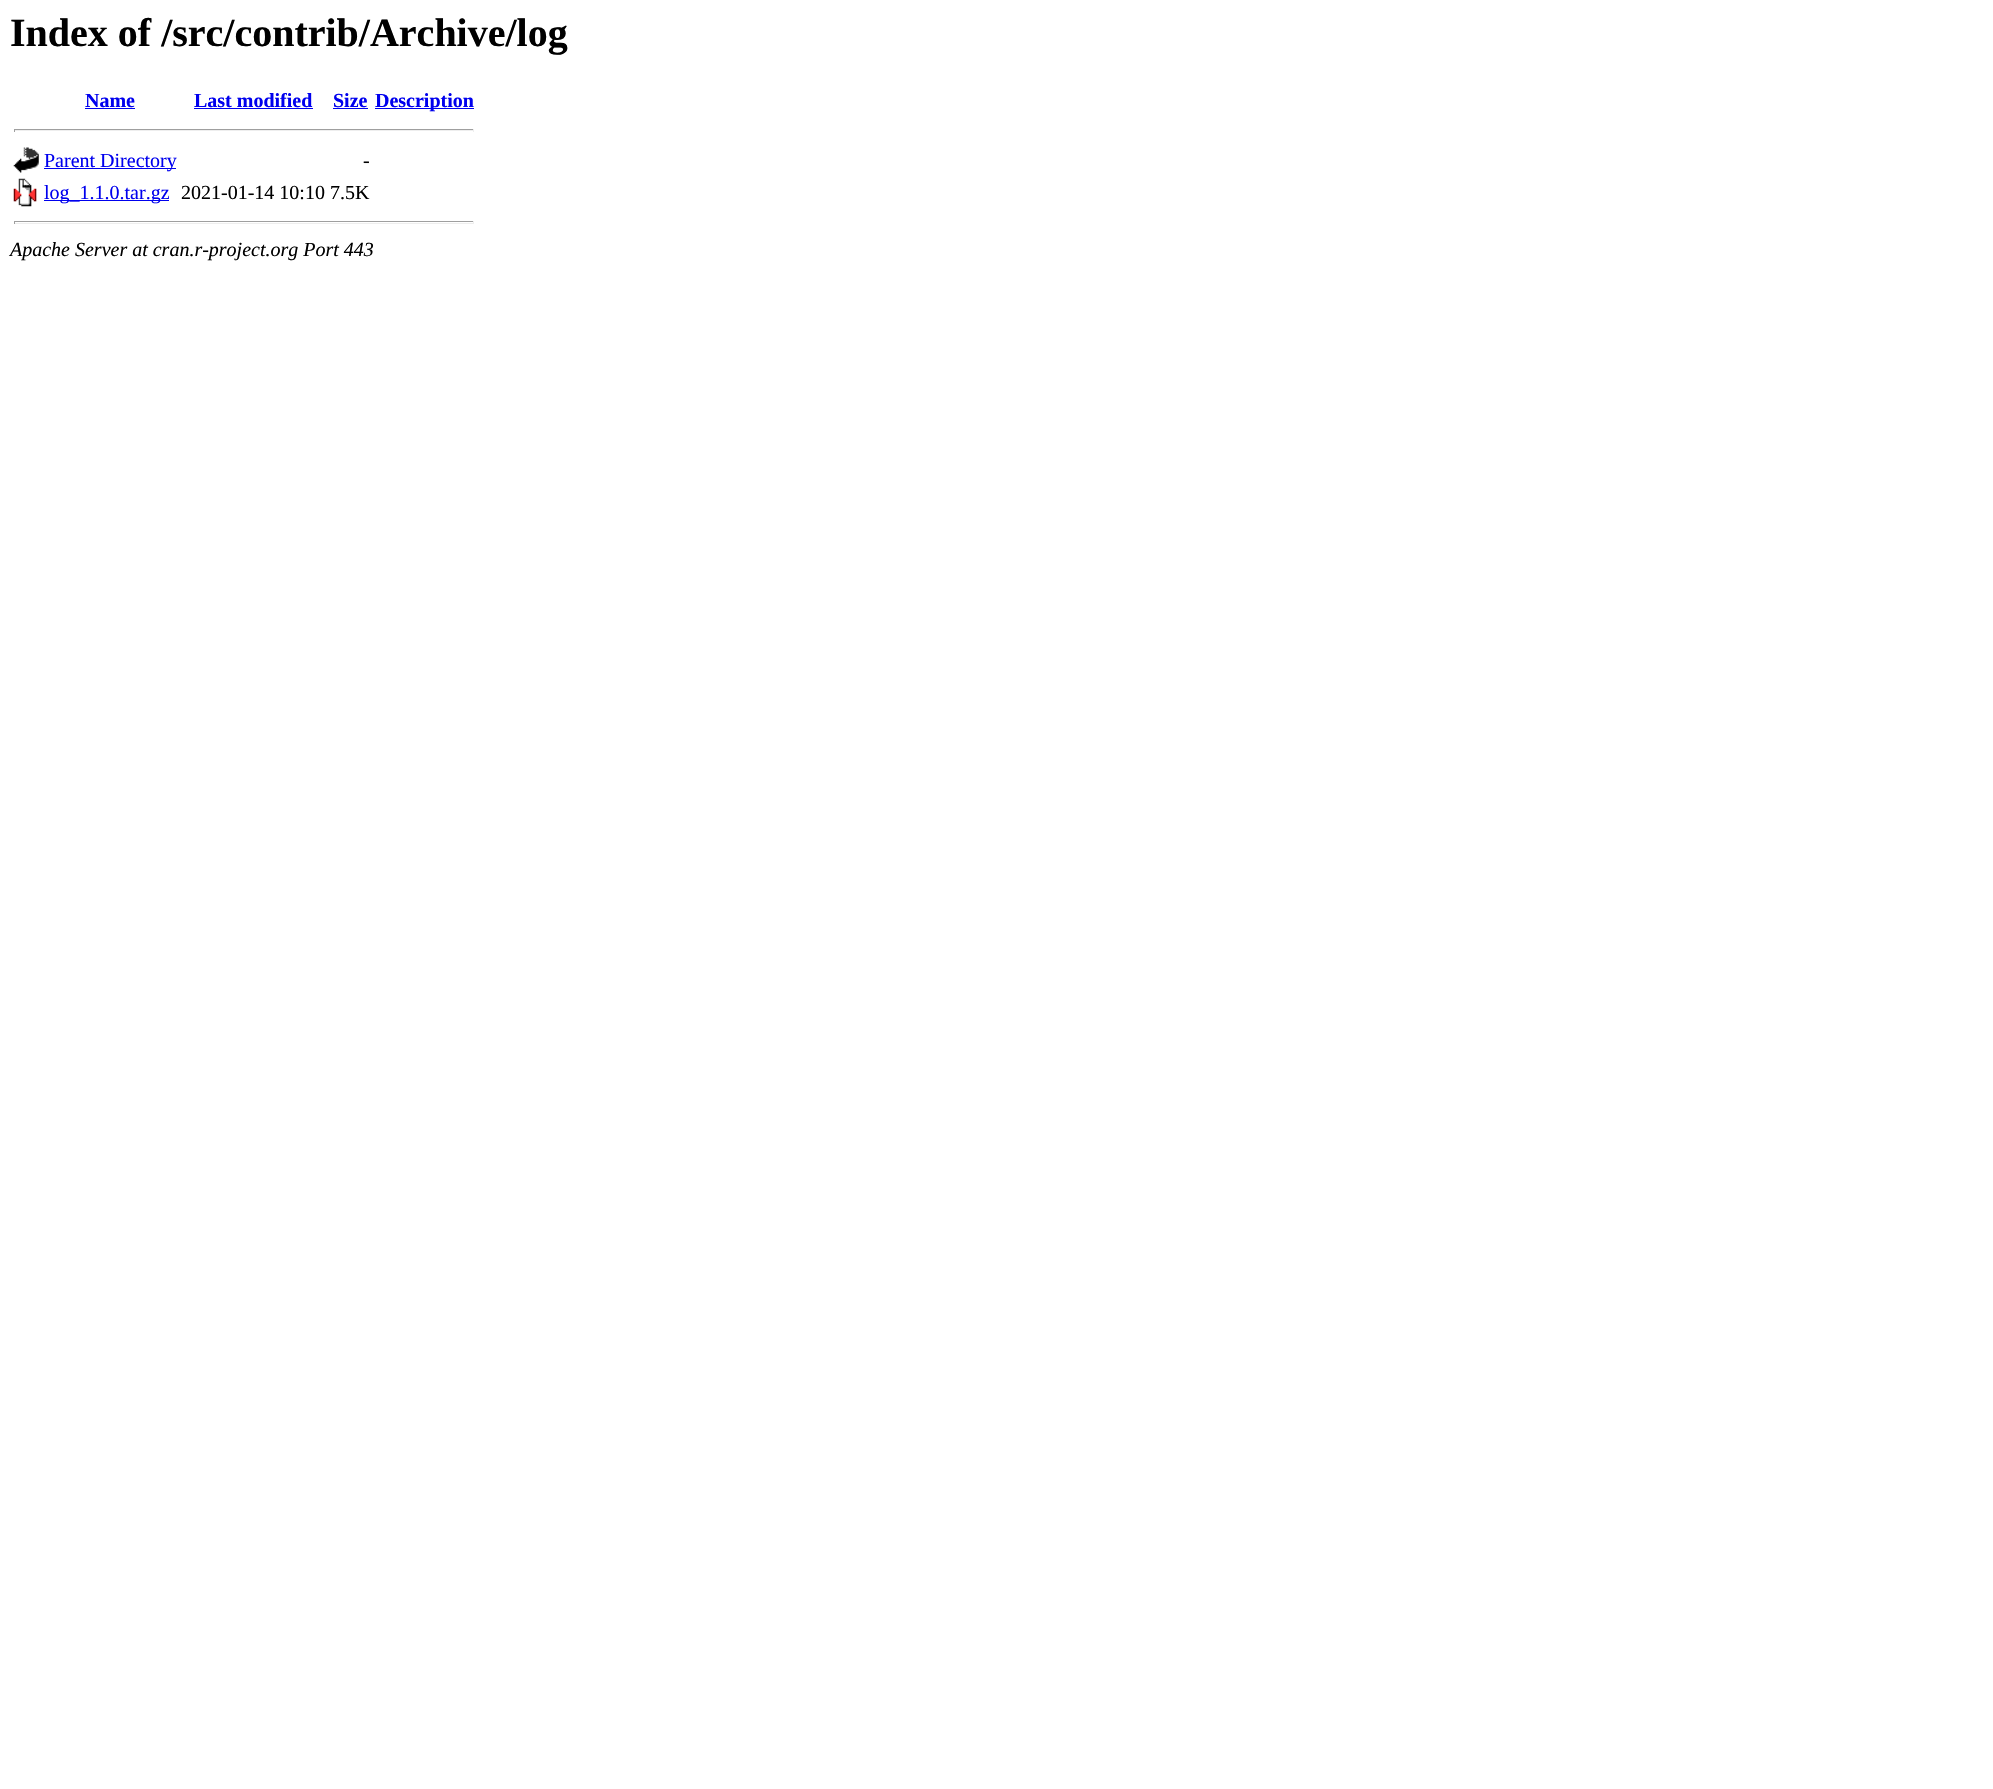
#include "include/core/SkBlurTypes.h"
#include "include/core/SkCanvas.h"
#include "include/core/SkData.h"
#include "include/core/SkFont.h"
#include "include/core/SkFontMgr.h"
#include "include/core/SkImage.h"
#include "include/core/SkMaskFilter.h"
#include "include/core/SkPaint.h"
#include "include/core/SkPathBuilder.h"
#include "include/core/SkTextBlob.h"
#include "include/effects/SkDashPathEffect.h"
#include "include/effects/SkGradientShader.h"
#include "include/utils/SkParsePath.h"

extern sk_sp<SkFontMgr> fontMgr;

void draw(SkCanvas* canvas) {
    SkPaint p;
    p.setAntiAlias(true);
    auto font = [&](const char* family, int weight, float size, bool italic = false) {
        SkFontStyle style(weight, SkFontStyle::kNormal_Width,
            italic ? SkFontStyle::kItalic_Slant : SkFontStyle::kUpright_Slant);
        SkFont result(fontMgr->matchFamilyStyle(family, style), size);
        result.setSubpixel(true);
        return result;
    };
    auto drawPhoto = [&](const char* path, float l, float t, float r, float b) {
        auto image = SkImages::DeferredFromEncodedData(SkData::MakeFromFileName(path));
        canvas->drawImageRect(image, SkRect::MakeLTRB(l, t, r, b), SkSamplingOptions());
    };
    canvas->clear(0xFFFFFFFF);
    auto font1 = font("Liberation Serif", 700, 40);
    p.setColor(0xFF000000);
    canvas->drawString("Index of /src/contrib/Archive/log", 10, 46, font1, p);
    auto font2 = font("Liberation Serif", 700, 20);
    p.setColor(0xFF0000EE);
    canvas->drawString("Name", 85, 107, font2, p);
    canvas->drawRect(SkRect::MakeLTRB(85, 108, 135, 109), p);
    canvas->drawString("Last modified", 194, 107, font2, p);
    canvas->drawRect(SkRect::MakeLTRB(194, 108, 313, 109), p);
    canvas->drawString("Size", 333, 107, font2, p);
    canvas->drawRect(SkRect::MakeLTRB(333, 108, 368, 109), p);
    canvas->drawRect(SkRect::MakeLTRB(375, 108, 474, 109), p);
    canvas->drawString("Description", 375, 107, font2, p);
    {
        const struct { float l, t, r, b; SkColor color; } items[] = {
            {14, 129, 474, 130, 0xFF9F9F9F},
            {473, 129, 474, 132, 0xFFEEEEEE},
            {14, 130, 474, 131, 0xFFEEEEEE},
            {14, 129, 15, 132, 0xFF9F9F9F},
        };
        for (auto [l, t, r, b, color] : items) {
            p.setColor(color);
            canvas->drawRect(SkRect::MakeLTRB(l, t, r, b), p);
        }
    }
    drawPhoto("media/1.png", 13, 147, 39, 173);
    p.setColor(0xFF0000EE);
    canvas->drawRect(SkRect::MakeLTRB(44, 168, 176, 169), p);
    auto font3 = font("Liberation Serif", 400, 20);
    canvas->drawString("Parent Directory", 44, 167, font3, p);
    p.setColor(0xFF000000);
    canvas->drawString("-", 363, 167, font3, p);
    drawPhoto("media/2.png", 13, 178, 37, 207);
    p.setColor(0xFF0000EE);
    canvas->drawRect(SkRect::MakeLTRB(44, 200, 169, 201), p);
    canvas->drawString("log_1.1.0.tar.gz", 44, 199, font3, p);
    p.setColor(0xFF000000);
    canvas->drawString("2021-01-14 10:10 7.5K", 181, 199, font3, p);
    {
        const struct { float l, t, r, b; SkColor color; } items[] = {
            {14, 221, 474, 222, 0xFF9F9F9F},
            {473, 221, 474, 224, 0xFFEEEEEE},
            {14, 223, 474, 224, 0xFFEEEEEE},
            {14, 221, 15, 224, 0xFF9F9F9F},
        };
        for (auto [l, t, r, b, color] : items) {
            p.setColor(color);
            canvas->drawRect(SkRect::MakeLTRB(l, t, r, b), p);
        }
    }
    auto font4 = font("Liberation Serif", 400, 20, true);
    p.setColor(0xFF000000);
    canvas->drawString("Apache Server at cran.r-project.org Port 443", 10, 256, font4, p);
}
